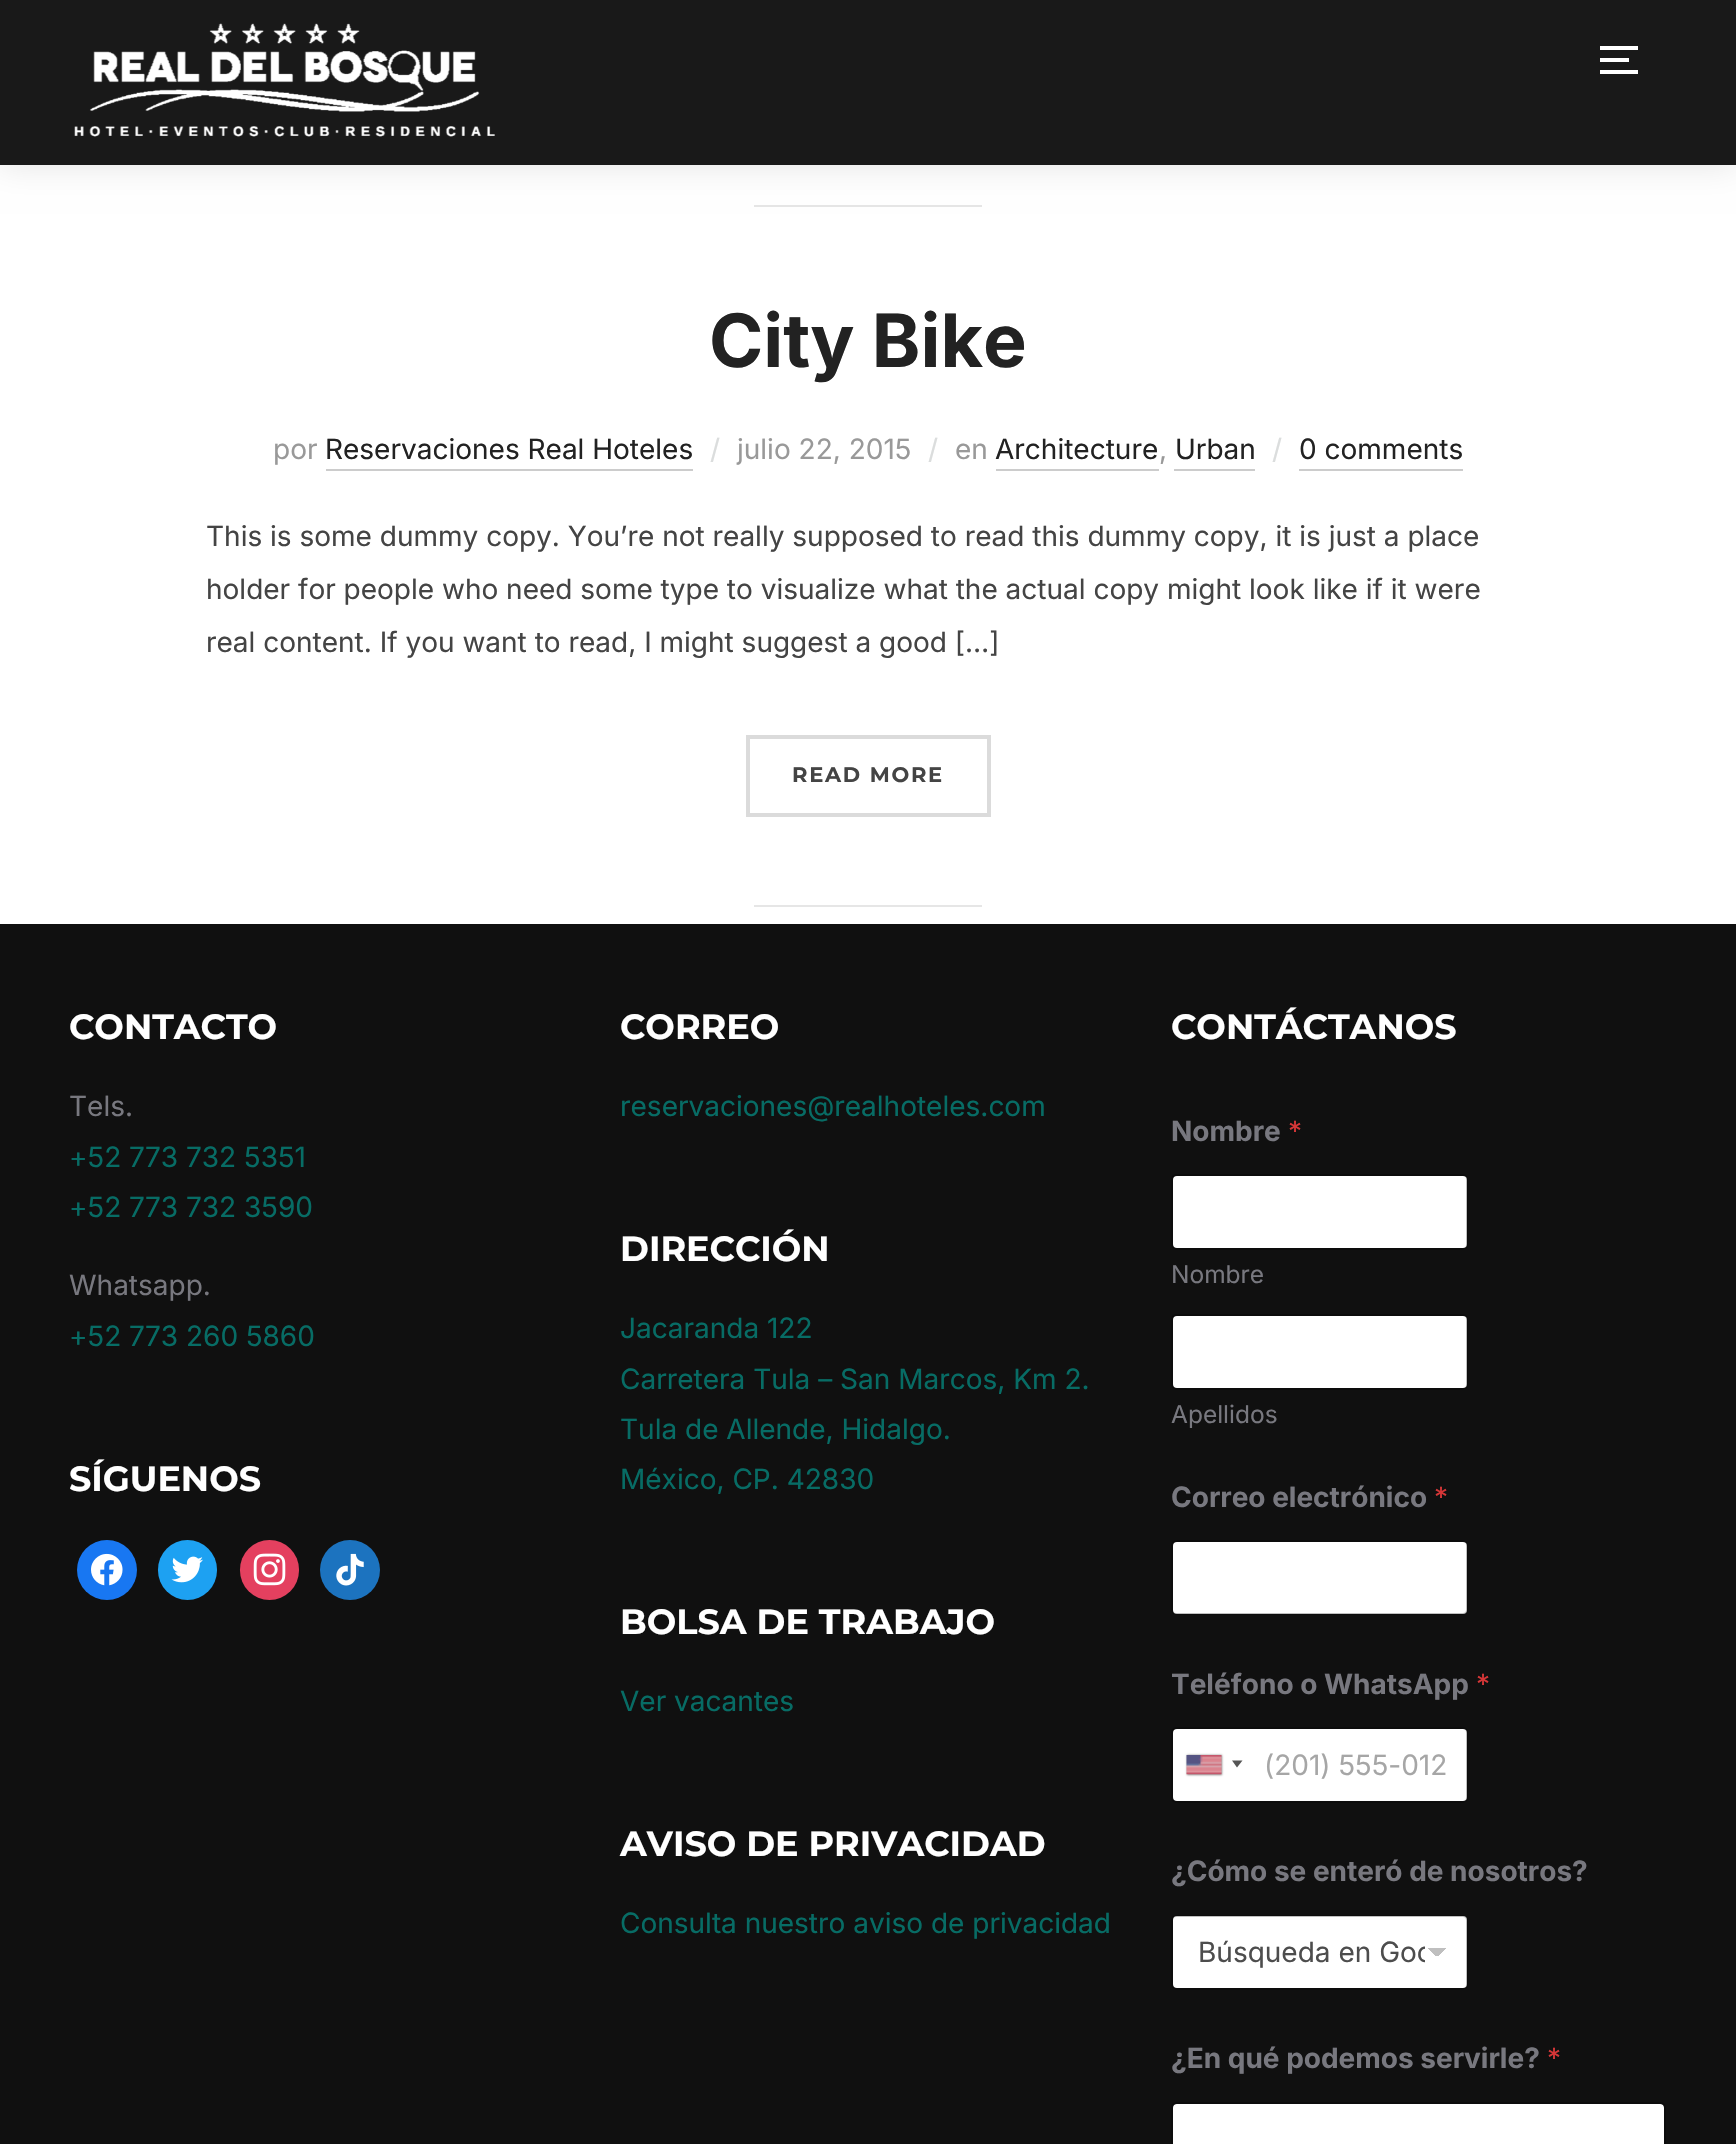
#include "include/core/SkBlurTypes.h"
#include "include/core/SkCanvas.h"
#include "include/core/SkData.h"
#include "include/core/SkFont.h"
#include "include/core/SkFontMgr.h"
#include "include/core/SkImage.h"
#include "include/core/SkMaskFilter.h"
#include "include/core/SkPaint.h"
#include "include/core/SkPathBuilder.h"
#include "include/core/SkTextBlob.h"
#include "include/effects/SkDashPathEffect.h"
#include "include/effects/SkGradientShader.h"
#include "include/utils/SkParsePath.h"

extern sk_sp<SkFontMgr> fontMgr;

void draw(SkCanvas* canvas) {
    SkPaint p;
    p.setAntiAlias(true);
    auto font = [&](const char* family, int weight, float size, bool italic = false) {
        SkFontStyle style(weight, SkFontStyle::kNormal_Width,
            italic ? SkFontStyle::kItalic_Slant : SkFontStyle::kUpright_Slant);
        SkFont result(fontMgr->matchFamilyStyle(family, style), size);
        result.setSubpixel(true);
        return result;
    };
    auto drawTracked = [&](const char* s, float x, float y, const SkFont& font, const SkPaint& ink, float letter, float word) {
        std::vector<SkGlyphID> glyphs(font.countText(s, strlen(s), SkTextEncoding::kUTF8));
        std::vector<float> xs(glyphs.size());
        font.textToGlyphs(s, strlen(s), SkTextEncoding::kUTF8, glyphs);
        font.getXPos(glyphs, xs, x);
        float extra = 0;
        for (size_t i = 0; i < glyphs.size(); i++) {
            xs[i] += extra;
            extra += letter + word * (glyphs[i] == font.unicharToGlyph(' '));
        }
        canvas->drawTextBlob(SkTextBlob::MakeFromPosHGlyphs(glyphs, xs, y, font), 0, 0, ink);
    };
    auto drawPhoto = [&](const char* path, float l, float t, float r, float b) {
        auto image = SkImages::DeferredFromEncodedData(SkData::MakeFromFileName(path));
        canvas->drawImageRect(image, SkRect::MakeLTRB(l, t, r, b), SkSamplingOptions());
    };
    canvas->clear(0xFFFFFFFF);
    p.setColor(0xFFE6E6E6);
    canvas->drawRect(SkRect::MakeLTRB(754, 205, 982, 207), p);
    canvas->save();
    canvas->clipPath(SkPathBuilder(SkPathFillType::kEvenOdd).moveTo(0, 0).lineTo(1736, 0).lineTo(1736, 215).lineTo(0, 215).close().moveTo(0, 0).lineTo(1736, 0).lineTo(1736, 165).lineTo(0, 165).close().detach(), true);
    p.setColor(0x1A000000);
    p.setMaskFilter(SkMaskFilter::MakeBlur(kNormal_SkBlurStyle, 16));
    canvas->drawRect(SkRect::MakeLTRB(-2, -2, 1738, 166), p);
    p.setMaskFilter(nullptr);
    canvas->restore();
    p.setColor(0xE6000000);
    canvas->drawRect(SkRect::MakeLTRB(0, 0, 1736, 165), p);
    drawPhoto("media/1.png", 74, 23, 495, 137);
    {
        const struct { float l, t, r, b; SkColor color; } items[] = {
            {1600, 46, 1638, 50, 0xFFFFFFFF},
            {1600, 58, 1629, 62, 0xFFFFFFFF},
            {1600, 70, 1638, 74, 0xFFFFFFFF},
        };
        for (auto [l, t, r, b, color] : items) {
            p.setColor(color);
            canvas->drawRect(SkRect::MakeLTRB(l, t, r, b), p);
        }
    }
    auto font1 = font("Inter", 700, 73.5f);
    p.setColor(0xFF222222);
    canvas->drawString("City Bike", 709, 367, font1, p);
    auto font2 = font("Inter", 400, 28);
    p.setColor(0xFF999999);
    canvas->drawString("por", 273, 459, font2, p);
    p.setColor(0xFFCCCCCC);
    canvas->drawRect(SkRect::MakeLTRB(326, 469, 693, 471), p);
    p.setColor(0xFF222222);
    canvas->drawString("Reservaciones Real Hoteles", 325, 459, font2, p);
    p.setColor(0xFFDBDDDD);
    canvas->drawString("/", 710, 459, font2, p);
    p.setColor(0xFF999999);
    canvas->drawString("julio 22, 2015", 737, 459, font2, p);
    p.setColor(0xFFDBDDDD);
    canvas->drawString("/", 928, 459, font2, p);
    p.setColor(0xFF999999);
    canvas->drawString("en", 955, 459, font2, p);
    p.setColor(0xFF222222);
    canvas->drawString("Architecture", 995, 459, font2, p);
    p.setColor(0xFF999999);
    canvas->drawString(",", 1159, 459, font2, p);
    p.setColor(0xFFCCCCCC);
    canvas->drawRect(SkRect::MakeLTRB(996, 469, 1159, 471), p);
    canvas->drawRect(SkRect::MakeLTRB(1174, 469, 1255, 471), p);
    p.setColor(0xFF222222);
    canvas->drawString("Urban", 1175, 459, font2, p);
    p.setColor(0xFFDBDDDD);
    canvas->drawString("/", 1272, 459, font2, p);
    p.setColor(0xFF222222);
    canvas->drawString("0 comments", 1299, 459, font2, p);
    p.setColor(0xFFCCCCCC);
    canvas->drawRect(SkRect::MakeLTRB(1299, 469, 1463, 471), p);
    p.setColor(0xFF444444);
    {
        const struct { const char* s; float x, y; } items[] = {
            {"This is some dummy copy. You’re not really supposed to read this dummy copy, it is just a place", 206, 546},
            {"holder for people who need some type to visualize what the actual copy might look like if it were", 206, 599},
            {"real content. If you want to read, I might suggest a good […]", 206, 652},
        };
        for (auto [s, x, y] : items) {
            canvas->drawString(s, x, y, font2, p);
        }
    }
    p.setStyle(SkPaint::kStroke_Style);
    p.setStrokeWidth(4);
    p.setColor(0xFFDBDBDB);
    canvas->drawRect(SkRect::MakeLTRB(748, 737, 989, 815), p);
    auto font3 = font("Montserrat", 700, 21);
    p.setStyle(SkPaint::kFill_Style);
    p.setColor(0xFF444444);
    drawTracked("READ MORE", 792, 782, font3, p, 1.75f, 0);
    p.setColor(0xFFE6E6E6);
    canvas->drawRect(SkRect::MakeLTRB(754, 905, 982, 907), p);
    p.setColor(0xFF101010);
    canvas->drawRect(SkRect::MakeLTRB(0, 924, 1736, 2144), p);
    auto font4 = font("Montserrat", 700, 35);
    p.setColor(0xFFFFFFFF);
    canvas->drawString("CONTACTO", 69, 1039, font4, p);
    p.setColor(0xFF78787F);
    canvas->drawString("Tels.", 69, 1116, font2, p);
    p.setColor(0xFF076C65);
    canvas->drawString("+52 773 732 5351", 69, 1167, font2, p);
    canvas->drawString("+52 773 732 3590", 69, 1217, font2, p);
    p.setColor(0xFF78787F);
    canvas->drawString("Whatsapp.", 69, 1295, font2, p);
    p.setColor(0xFF076C65);
    canvas->drawString("+52 773 260 5860", 69, 1346, font2, p);
    p.setColor(0xFFFFFFFF);
    canvas->drawString("SÍGUENOS", 69, 1491, font4, p);
    p.setColor(0xFF1877F2);
    canvas->drawCircle(107, 1570, 30, p);
    drawPhoto("media/2.png", 91, 1553, 123, 1586);
    p.setColor(0xFF1DA1F2);
    canvas->drawRoundRect(SkRect::MakeLTRB(158, 1540, 217, 1600), 29.5f, 29.5f, p);
    drawPhoto("media/3.png", 171, 1556, 203, 1583);
    p.setColor(0xFFE4405F);
    canvas->drawRoundRect(SkRect::MakeLTRB(240, 1540, 299, 1600), 29.5f, 29.5f, p);
    drawPhoto("media/4.png", 253, 1553, 286, 1586);
    p.setColor(0xFF1C73BF);
    canvas->drawCircle(350, 1570, 30, p);
    drawPhoto("media/5.png", 336, 1553, 364, 1586);
    p.setColor(0xFFFFFFFF);
    canvas->drawString("CORREO", 620, 1039, font4, p);
    p.setColor(0xFF076C65);
    canvas->drawString("reservaciones@realhoteles.com", 620, 1116, font2, p);
    p.setColor(0xFFFFFFFF);
    canvas->drawString("DIRECCIÓN", 620, 1261, font4, p);
    p.setColor(0xFF076C65);
    {
        const struct { const char* s; float x, y; } items[] = {
            {"Jacaranda 122", 620, 1338},
            {"Carretera Tula – San Marcos, Km 2.", 620, 1389},
            {"Tula de Allende, Hidalgo.", 620, 1439},
            {"México, CP. 42830", 620, 1489},
        };
        for (auto [s, x, y] : items) {
            canvas->drawString(s, x, y, font2, p);
        }
    }
    p.setColor(0xFFFFFFFF);
    canvas->drawString("BOLSA DE TRABAJO", 620, 1634, font4, p);
    p.setColor(0xFF076C65);
    canvas->drawString("Ver vacantes", 620, 1711, font2, p);
    p.setColor(0xFFFFFFFF);
    canvas->drawString("AVISO DE PRIVACIDAD", 620, 1856, font4, p);
    p.setColor(0xFF076C65);
    canvas->drawString("Consulta nuestro aviso de privacidad", 620, 1933, font2, p);
    p.setColor(0xFFFFFFFF);
    canvas->drawString("CONTÁCTANOS", 1171, 1039, font4, p);
    auto font5 = font("Inter", 700, 28);
    p.setColor(0xFF78787F);
    canvas->drawString("Nombre", 1171, 1141, font5, p);
    p.setColor(0xFFD63637);
    canvas->drawString("*", 1288, 1141, font2, p);
    p.setColor(0xFFFFFFFF);
    canvas->drawRoundRect(SkRect::MakeLTRB(1173, 1176, 1467, 1248), 4, 4, p);
    p.setStyle(SkPaint::kStroke_Style);
    p.setStrokeWidth(2);
    p.setColor(0x40000000);
    canvas->drawRoundRect(SkRect::MakeLTRB(1172, 1175, 1467, 1249), 4, 4, p);
    auto font6 = font("Inter", 400, 24.5f);
    p.setStyle(SkPaint::kFill_Style);
    p.setColor(0xFF78787F);
    canvas->drawString("Nombre", 1171, 1283, font6, p);
    p.setColor(0xFFFFFFFF);
    canvas->drawRoundRect(SkRect::MakeLTRB(1173, 1316, 1467, 1388), 4, 4, p);
    p.setStyle(SkPaint::kStroke_Style);
    p.setColor(0x40000000);
    canvas->drawRoundRect(SkRect::MakeLTRB(1172, 1315, 1467, 1389), 4, 4, p);
    p.setStyle(SkPaint::kFill_Style);
    p.setColor(0xFF78787F);
    canvas->drawString("Apellidos", 1171, 1423, font6, p);
    canvas->drawString("Correo electrónico", 1171, 1507, font5, p);
    p.setColor(0xFFD63637);
    canvas->drawString("*", 1434, 1507, font2, p);
    p.setColor(0xFFFFFFFF);
    canvas->drawRoundRect(SkRect::MakeLTRB(1173, 1542, 1467, 1614), 4, 4, p);
    p.setStyle(SkPaint::kStroke_Style);
    p.setColor(0x40000000);
    canvas->drawRoundRect(SkRect::MakeLTRB(1172, 1541, 1467, 1614), 4, 4, p);
    p.setStyle(SkPaint::kFill_Style);
    p.setColor(0xFF78787F);
    canvas->drawString("Teléfono o WhatsApp", 1171, 1694, font5, p);
    p.setColor(0xFFD63637);
    canvas->drawString("*", 1476, 1694, font2, p);
    p.setColor(0xFFFFFFFF);
    canvas->drawRoundRect(SkRect::MakeLTRB(1173, 1729, 1467, 1801), 4, 4, p);
    p.setStyle(SkPaint::kStroke_Style);
    p.setColor(0x40000000);
    canvas->drawRoundRect(SkRect::MakeLTRB(1172, 1728, 1467, 1802), 4, 4, p);
    p.setStyle(SkPaint::kFill_Style);
    p.setColor(0xFF888888);
    p.setMaskFilter(SkMaskFilter::MakeBlur(kNormal_SkBlurStyle, 1));
    canvas->drawRect(SkRect::MakeLTRB(1187, 1755, 1222, 1775), p);
    p.setMaskFilter(nullptr);
    drawPhoto("media/6.png", 1186, 1755, 1222, 1775);
    p.setColor(0xFF555555);
    canvas->drawPath(SkPathBuilder().moveTo(1232, 1760.5f).lineTo(1242.5f, 1760.5f).lineTo(1237, 1767.5f).close().detach(), p);
    p.setColor(0xFFA6A6A6);
    canvas->drawString("(201) 555-012", 1264, 1775, font2, p);
    p.setColor(0xFF78787F);
    canvas->drawString("¿Cómo se enteró de nosotros?", 1171, 1881, font5, p);
    p.setColor(0xFFFFFFFF);
    canvas->drawRoundRect(SkRect::MakeLTRB(1173, 1916, 1467, 1988), 4, 4, p);
    {
        const SkColor colors[] = {0xFFBFBFBF, 0xFFFFFFFF};
        const float stops[] = {0.5f, 0.5f};
        const SkPoint ends[] = {{1437, 1948}, {1446, 1957}};
        p.setShader(SkGradientShader::MakeLinear(ends, colors, stops, 2, SkTileMode::kClamp));
        p.setAlpha(255);
    }
    canvas->drawRect(SkRect::MakeLTRB(1437, 1948, 1446, 1956), p);
    {
        const SkColor colors[] = {0xFFFFFFFF, 0xFFBFBFBF};
        const float stops[] = {0.5f, 0.5f};
        const SkPoint ends[] = {{1428, 1957}, {1437, 1948}};
        p.setShader(SkGradientShader::MakeLinear(ends, colors, stops, 2, SkTileMode::kClamp));
        p.setAlpha(255);
    }
    canvas->drawRect(SkRect::MakeLTRB(1428, 1948, 1437, 1956), p);
    p.setStyle(SkPaint::kStroke_Style);
    p.setShader(nullptr);
    p.setColor(0x40000000);
    canvas->drawRoundRect(SkRect::MakeLTRB(1172, 1916, 1467, 1989), 4, 4, p);
    canvas->save();
    canvas->clipRect(SkRect::MakeLTRB(1197, 1927, 1425, 1978));
    p.setStyle(SkPaint::kFill_Style);
    p.setColor(0xFF4D4D4D);
    canvas->drawString("Búsqueda en Goo", 1198, 1962, font2, p);
    canvas->restore();
    p.setColor(0xFF78787F);
    canvas->drawString("¿En qué podemos servirle?", 1171, 2068, font5, p);
    p.setColor(0xFFD63637);
    canvas->drawString("*", 1547, 2068, font2, p);
    p.setColor(0xFFFFFFFF);
    canvas->drawRoundRect(SkRect::MakeLTRB(1173, 2104, 1664, 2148), 4, 4, p);
    p.setStyle(SkPaint::kStroke_Style);
    p.setColor(0xFF0C0C0C);
    canvas->drawRoundRect(SkRect::MakeLTRB(1172, 2103, 1665, 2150), 4, 4, p);
}
